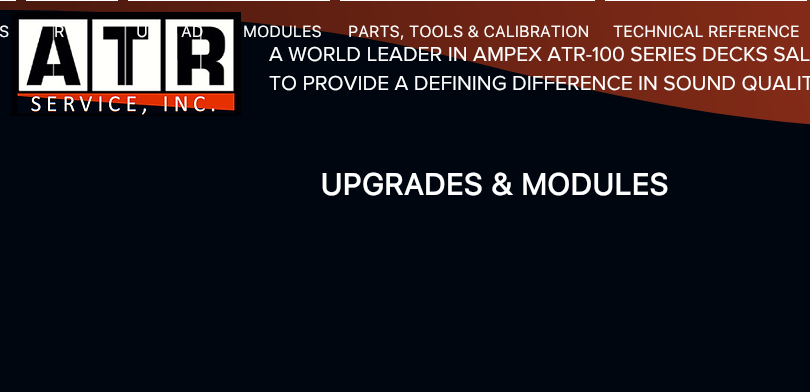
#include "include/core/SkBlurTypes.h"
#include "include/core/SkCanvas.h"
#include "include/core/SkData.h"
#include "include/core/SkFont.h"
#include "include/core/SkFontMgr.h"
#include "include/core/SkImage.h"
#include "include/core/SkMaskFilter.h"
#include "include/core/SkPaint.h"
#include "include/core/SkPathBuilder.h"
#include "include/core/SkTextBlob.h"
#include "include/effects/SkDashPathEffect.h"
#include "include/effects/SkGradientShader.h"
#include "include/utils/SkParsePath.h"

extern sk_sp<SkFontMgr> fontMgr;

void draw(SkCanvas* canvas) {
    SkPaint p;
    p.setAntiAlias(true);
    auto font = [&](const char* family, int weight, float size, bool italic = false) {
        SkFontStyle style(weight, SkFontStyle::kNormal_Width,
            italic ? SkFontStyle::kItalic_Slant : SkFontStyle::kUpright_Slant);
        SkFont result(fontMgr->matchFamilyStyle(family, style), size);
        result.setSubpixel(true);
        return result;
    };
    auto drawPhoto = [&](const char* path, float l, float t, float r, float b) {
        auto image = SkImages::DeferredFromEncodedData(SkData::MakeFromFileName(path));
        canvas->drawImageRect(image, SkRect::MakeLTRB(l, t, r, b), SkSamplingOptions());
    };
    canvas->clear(0xFF00060F);
    {
        const SkColor colors[] = {0xFF902F1A, 0xFF48180D};
        const float stops[] = {0, 1};
        const SkPoint ends[] = {{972, -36}, {7.6f, 170}};
        p.setShader(SkGradientShader::MakeLinear(ends, colors, stops, 2, SkTileMode::kClamp));
        p.setAlpha(255);
    }
    canvas->drawRect(SkRect::MakeLTRB(0, 0, 810, 125), p);
    p.setShader(nullptr);
    p.setColor(0xFF00060F);
    canvas->drawPath(SkPathBuilder().moveTo(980, 134).lineTo(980, 131).cubicTo(748, 131, 627, 100, 427, 51).cubicTo(250, 8, 0, 10, 0, 10).lineTo(0, 134).close().detach(), p);
    p.setColor(0xFFFFFFFF);
    canvas->drawRect(SkRect::MakeLTRB(0, 0, 16, 1), p);
    auto font1 = font("SF Pro Text", 400, 16);
    canvas->drawString("S", -1, 37, font1, p);
    canvas->drawRect(SkRect::MakeLTRB(26, 0, 118, 1), p);
    drawPhoto("media/1.png", 11, 12, 241, 116);
    canvas->drawString("R", 54, 37, font1, p);
    canvas->drawRect(SkRect::MakeLTRB(128, 0, 330, 1), p);
    {
        const struct { const char* s; float x, y; } items[] = {
            {"U", 136, 37},
            {"AD", 181, 37},
            {"MODULES", 243, 37},
        };
        for (auto [s, x, y] : items) {
            canvas->drawString(s, x, y, font1, p);
        }
    }
    canvas->drawRect(SkRect::MakeLTRB(340, 0, 595, 1), p);
    canvas->drawString("PARTS, TOOLS & CALIBRATION", 348, 37, font1, p);
    canvas->drawRect(SkRect::MakeLTRB(605, 0, 807, 1), p);
    canvas->drawString("TECHNICAL REFERENCE", 613, 37, font1, p);
    auto font2 = font("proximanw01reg", 400, 21);
    canvas->drawString("A WORLD LEADER IN AMPEX ATR-100 SERIES DECKS SAL", 269, 61, font2, p);
    canvas->drawString("TO PROVIDE A DEFINING DIFFERENCE IN SOUND QUALIT", 269, 90, font2, p);
    auto font3 = font("SF Pro Text", 700, 30);
    canvas->drawString("UPGRADES & MODULES", 320, 195, font3, p);
}
